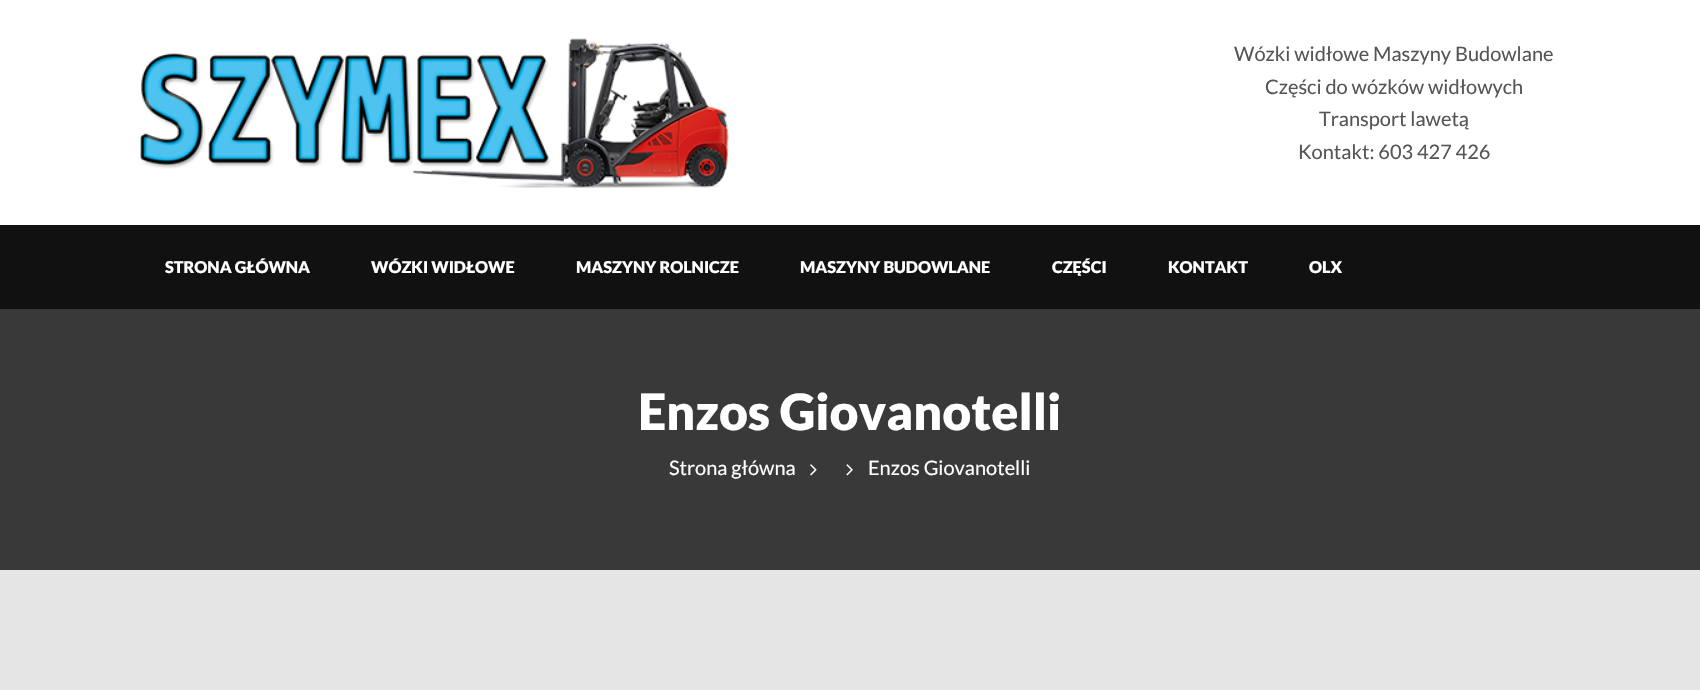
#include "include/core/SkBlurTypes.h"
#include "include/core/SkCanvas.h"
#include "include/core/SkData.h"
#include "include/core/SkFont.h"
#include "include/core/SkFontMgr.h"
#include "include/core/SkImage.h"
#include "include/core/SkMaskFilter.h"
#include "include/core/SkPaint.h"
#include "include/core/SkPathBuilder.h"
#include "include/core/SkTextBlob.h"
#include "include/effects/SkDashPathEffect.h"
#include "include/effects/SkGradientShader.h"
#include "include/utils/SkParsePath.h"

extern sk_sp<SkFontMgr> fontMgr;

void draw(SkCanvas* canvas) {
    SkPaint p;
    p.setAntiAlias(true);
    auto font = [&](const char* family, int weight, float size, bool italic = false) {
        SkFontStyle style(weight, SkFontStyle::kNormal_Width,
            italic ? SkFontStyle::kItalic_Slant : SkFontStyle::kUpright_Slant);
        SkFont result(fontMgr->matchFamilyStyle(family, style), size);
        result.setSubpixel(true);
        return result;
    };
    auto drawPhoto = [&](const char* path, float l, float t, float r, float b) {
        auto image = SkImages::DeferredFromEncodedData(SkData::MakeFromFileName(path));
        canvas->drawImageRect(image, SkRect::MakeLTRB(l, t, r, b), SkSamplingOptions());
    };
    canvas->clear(0xFFE5E5E5);
    p.setColor(0xFFFFFFFF);
    canvas->drawRect(SkRect::MakeLTRB(0, 0, 1700, 225), p);
    drawPhoto("media/1.png", 140, 38, 729, 188);
    auto font1 = font("Lato", 400, 20);
    p.setColor(0xFF555555);
    {
        const struct { const char* s; float x, y; } items[] = {
            {"Wózki widłowe Maszyny Budowlane", 1234, 61},
            {"Części do wózków widłowych", 1265, 94},
            {"Transport lawetą", 1319, 126},
            {"Kontakt: 603 427 426", 1298, 159},
        };
        for (auto [s, x, y] : items) {
            canvas->drawString(s, x, y, font1, p);
        }
    }
    p.setColor(0xFF111111);
    canvas->drawRect(SkRect::MakeLTRB(0, 225, 1700, 309), p);
    auto font2 = font("Lato", 900, 16.25f);
    p.setColor(0xFFFFFFFF);
    {
        const struct { const char* s; float x, y; } items[] = {
            {"STRONA GŁÓWNA", 165, 273},
            {"WÓZKI WIDŁOWE", 371, 273},
            {"MASZYNY ROLNICZE", 576, 273},
            {"MASZYNY BUDOWLANE", 800, 273},
            {"CZĘŚCI", 1052, 273},
            {"KONTAKT", 1168, 273},
            {"OLX", 1309, 273},
        };
        for (auto [s, x, y] : items) {
            canvas->drawString(s, x, y, font2, p);
        }
    }
    p.setColor(0xFF393939);
    canvas->drawRect(SkRect::MakeLTRB(0, 309, 1700, 570), p);
    auto font3 = font("Lato", 900, 50);
    p.setColor(0xFFFFFFFF);
    canvas->drawString("Enzos Giovanotelli", 638, 430, font3, p);
    canvas->drawString("Strona główna", 669, 475, font1, p);
    drawPhoto("media/2.png", 810, 464, 817, 476);
    drawPhoto("media/3.png", 846, 464, 853, 476);
    canvas->drawString("Enzos Giovanotelli", 868, 475, font1, p);
}
